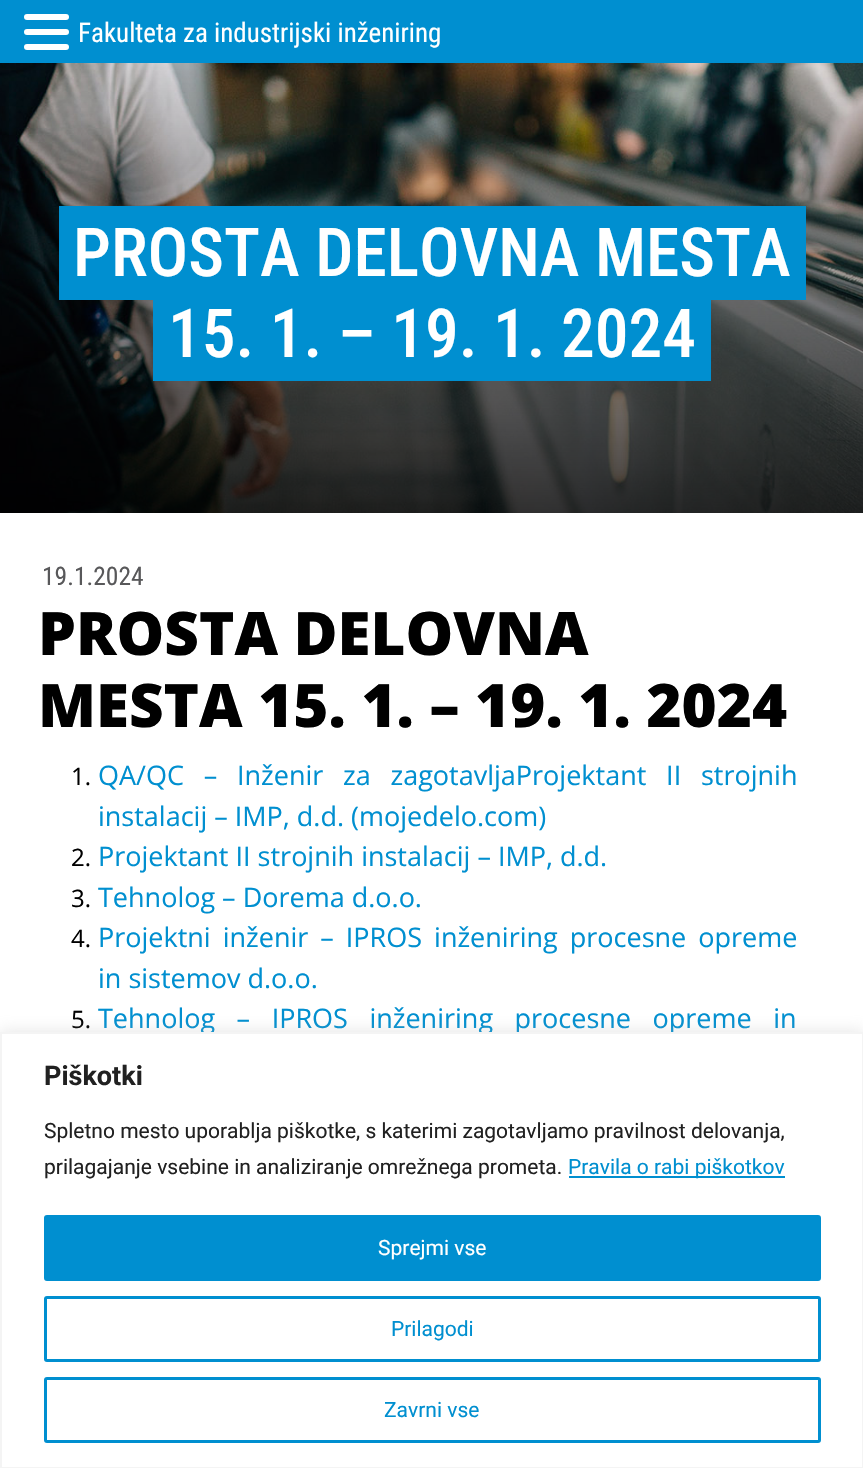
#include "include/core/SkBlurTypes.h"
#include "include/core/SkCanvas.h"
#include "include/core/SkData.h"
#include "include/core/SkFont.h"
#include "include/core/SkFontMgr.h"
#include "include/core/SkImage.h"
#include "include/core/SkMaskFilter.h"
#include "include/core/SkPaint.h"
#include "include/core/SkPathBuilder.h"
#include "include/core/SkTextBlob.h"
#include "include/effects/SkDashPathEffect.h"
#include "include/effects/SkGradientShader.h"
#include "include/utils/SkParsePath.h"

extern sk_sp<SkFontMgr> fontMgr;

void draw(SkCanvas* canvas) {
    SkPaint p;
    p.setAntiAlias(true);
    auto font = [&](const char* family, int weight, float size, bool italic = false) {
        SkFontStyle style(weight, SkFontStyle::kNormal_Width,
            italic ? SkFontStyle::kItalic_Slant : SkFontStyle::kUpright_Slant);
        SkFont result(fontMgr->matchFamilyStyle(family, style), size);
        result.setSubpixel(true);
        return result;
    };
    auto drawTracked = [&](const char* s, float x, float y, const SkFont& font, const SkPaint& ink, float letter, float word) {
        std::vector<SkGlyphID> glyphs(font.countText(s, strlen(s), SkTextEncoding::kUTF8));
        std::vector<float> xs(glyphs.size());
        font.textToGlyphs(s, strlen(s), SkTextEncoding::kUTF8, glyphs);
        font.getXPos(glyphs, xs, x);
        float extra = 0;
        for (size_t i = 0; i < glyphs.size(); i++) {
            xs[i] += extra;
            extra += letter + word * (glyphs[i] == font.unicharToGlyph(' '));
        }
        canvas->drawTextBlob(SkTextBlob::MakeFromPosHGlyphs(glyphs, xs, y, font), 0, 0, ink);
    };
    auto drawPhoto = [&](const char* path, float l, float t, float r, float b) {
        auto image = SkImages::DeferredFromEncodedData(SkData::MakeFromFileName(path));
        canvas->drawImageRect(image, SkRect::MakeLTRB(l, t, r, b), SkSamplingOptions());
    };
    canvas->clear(0xFFFFFFFF);
    p.setColor(0xFF008FD0);
    canvas->drawRect(SkRect::MakeLTRB(0, 0, 863, 63), p);
    p.setColor(0xFFFFFFFF);
    canvas->drawRoundRect(SkRect::MakeLTRB(24, 14, 69, 20), 3, 3, p);
    canvas->drawRoundRect(SkRect::MakeLTRB(24, 29, 69, 35), 3, 3, p);
    canvas->drawRoundRect(SkRect::MakeLTRB(24, 44, 69, 50), 3, 3, p);
    auto font1 = font("Roboto Condensed", 400, 27);
    canvas->drawString("Fakulteta za industrijski inženiring", 78, 42, font1, p);
    drawPhoto("media/1.png", 0, 63, 863, 513);
    p.setColor(0xFF008FD0);
    canvas->drawRect(SkRect::MakeLTRB(74, 206, 806, 300), p);
    auto font2 = font("Roboto Condensed", 500, 67.5f);
    p.setColor(0xFFFFFFFF);
    canvas->drawString("PROSTA DELOVNA MESTA", 73, 276, font2, p);
    p.setColor(0xFF008FD0);
    canvas->drawRect(SkRect::MakeLTRB(59, 206, 74, 300), p);
    canvas->drawRect(SkRect::MakeLTRB(168, 300, 711, 381), p);
    p.setColor(0xFFFFFFFF);
    canvas->drawString("15. 1. – 19. 1. 2024", 168, 357, font2, p);
    p.setColor(0xFF008FD0);
    canvas->drawRect(SkRect::MakeLTRB(153, 300, 168, 381), p);
    auto font3 = font("Roboto Condensed", 400, 25.5f);
    p.setColor(0xFF58585A);
    canvas->drawString("19.1.2024", 42, 585, font3, p);
    auto font4 = font("Open Sans", 800, 60);
    p.setColor(0xFF000000);
    canvas->drawString("PROSTA DELOVNA", 38, 655, font4, p);
    canvas->drawString("MESTA 15. 1. – 19. 1. 2024", 38, 727, font4, p);
    auto font5 = font("Open Sans", 400, 24);
    canvas->drawString("1.", 71, 785, font5, p);
    auto font6 = font("Open Sans", 400, 27);
    p.setColor(0xFF008FD0);
    drawTracked("QA/QC – Inženir za zagotavljaProjektant II strojnih", 98, 785, font6, p, 0, 12.75f);
    canvas->drawString("instalacij – IMP, d.d. (mojedelo.com)", 98, 826, font6, p);
    p.setColor(0xFF000000);
    canvas->drawString("2.", 71, 866, font5, p);
    p.setColor(0xFF008FD0);
    canvas->drawString("Projektant II strojnih instalacij – IMP, d.d.", 98, 866, font6, p);
    p.setColor(0xFF000000);
    canvas->drawString("3.", 71, 907, font5, p);
    p.setColor(0xFF008FD0);
    canvas->drawString("Tehnolog – Dorema d.o.o.", 98, 907, font6, p);
    p.setColor(0xFF000000);
    canvas->drawString("4.", 71, 947, font5, p);
    p.setColor(0xFF008FD0);
    drawTracked("Projektni inženir – IPROS inženiring procesne opreme", 98, 947, font6, p, 0, 5);
    canvas->drawString("in sistemov d.o.o.", 98, 988, font6, p);
    p.setColor(0xFF000000);
    canvas->drawString("5.", 71, 1028, font5, p);
    p.setColor(0xFF008FD0);
    drawTracked("Tehnolog – IPROS inženiring procesne opreme in", 98, 1028, font6, p, 0, 14.5f);
    p.setColor(0x4DACABAB);
    p.setMaskFilter(SkMaskFilter::MakeBlur(kNormal_SkBlurStyle, 7.5f));
    canvas->drawRect(SkRect::MakeLTRB(0, 1031, 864, 1467), p);
    p.setMaskFilter(nullptr);
    p.setColor(0xFFFFFFFF);
    canvas->drawRect(SkRect::MakeLTRB(1, 1033, 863, 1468), p);
    p.setStyle(SkPaint::kStroke_Style);
    p.setStrokeWidth(2);
    p.setColor(0xFFF4F4F4);
    canvas->drawRect(SkRect::MakeLTRB(1, 1033, 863, 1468), p);
    auto font7 = font("Roboto", 700, 27);
    p.setStyle(SkPaint::kFill_Style);
    p.setColor(0xFF212121);
    canvas->drawString("Piškotki", 44, 1085, font7, p);
    auto font8 = font("Roboto", 400, 21);
    canvas->drawString("Spletno mesto uporablja piškotke, s katerimi zagotavljamo pravilnost delovanja,", 44, 1138, font8, p);
    canvas->drawString("prilagajanje vsebine in analiziranje omrežnega prometa.", 44, 1174, font8, p);
    p.setColor(0xFF008FD0);
    canvas->drawRect(SkRect::MakeLTRB(569, 1176, 785, 1178), p);
    canvas->drawString("Pravila o rabi piškotkov", 568, 1174, font8, p);
    canvas->drawRoundRect(SkRect::MakeLTRB(45.5f, 1216.5f, 819.5f, 1279.5f), 1.5f, 1.5f, p);
    p.setStyle(SkPaint::kStroke_Style);
    p.setStrokeWidth(3);
    canvas->drawRoundRect(SkRect::MakeLTRB(45.5f, 1216.5f, 819.5f, 1279.5f), 1.5f, 1.5f, p);
    p.setStyle(SkPaint::kFill_Style);
    p.setColor(0xFFFFFFFF);
    canvas->drawString("Sprejmi vse", 378, 1255, font8, p);
    p.setStyle(SkPaint::kStroke_Style);
    p.setColor(0xFF008FD0);
    canvas->drawRoundRect(SkRect::MakeLTRB(45.5f, 1297.5f, 819.5f, 1360.5f), 1.5f, 1.5f, p);
    p.setStyle(SkPaint::kFill_Style);
    canvas->drawString("Prilagodi", 391, 1336, font8, p);
    p.setStyle(SkPaint::kStroke_Style);
    canvas->drawRoundRect(SkRect::MakeLTRB(45.5f, 1378.5f, 819.5f, 1441.5f), 1.5f, 1.5f, p);
    p.setStyle(SkPaint::kFill_Style);
    canvas->drawString("Zavrni vse", 384, 1417, font8, p);
}
